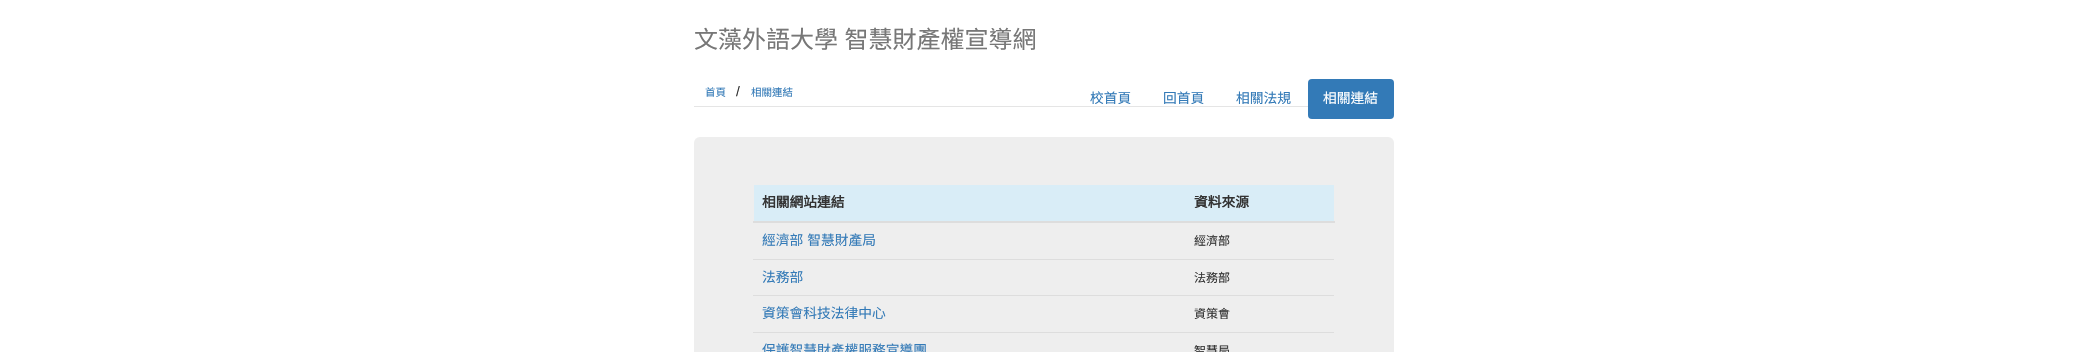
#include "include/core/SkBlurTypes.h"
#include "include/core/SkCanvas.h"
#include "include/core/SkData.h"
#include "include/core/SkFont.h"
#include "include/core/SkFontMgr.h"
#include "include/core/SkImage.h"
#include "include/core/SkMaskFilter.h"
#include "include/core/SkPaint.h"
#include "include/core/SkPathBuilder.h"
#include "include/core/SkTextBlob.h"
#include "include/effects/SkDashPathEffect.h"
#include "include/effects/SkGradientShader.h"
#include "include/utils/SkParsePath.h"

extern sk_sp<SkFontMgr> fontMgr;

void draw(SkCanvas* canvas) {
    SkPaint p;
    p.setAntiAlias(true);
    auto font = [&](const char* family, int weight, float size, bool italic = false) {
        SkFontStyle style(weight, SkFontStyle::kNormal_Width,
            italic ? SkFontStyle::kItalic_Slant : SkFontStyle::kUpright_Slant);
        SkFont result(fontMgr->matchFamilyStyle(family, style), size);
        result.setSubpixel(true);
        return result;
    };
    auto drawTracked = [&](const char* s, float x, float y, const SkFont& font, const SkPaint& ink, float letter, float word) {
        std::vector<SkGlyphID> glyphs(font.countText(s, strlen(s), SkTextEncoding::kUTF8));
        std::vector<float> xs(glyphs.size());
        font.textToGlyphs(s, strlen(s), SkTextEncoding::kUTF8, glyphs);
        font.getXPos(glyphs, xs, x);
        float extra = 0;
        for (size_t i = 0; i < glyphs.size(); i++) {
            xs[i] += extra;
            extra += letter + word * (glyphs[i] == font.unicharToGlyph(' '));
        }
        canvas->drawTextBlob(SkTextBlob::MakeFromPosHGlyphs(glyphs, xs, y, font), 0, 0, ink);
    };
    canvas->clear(0xFFFFFFFF);
    p.setColor(0xFFE5E5E5);
    canvas->drawRect(SkRect::MakeLTRB(694, 106, 1308, 107), p);
    auto font1 = font("Noto Sans CJK TC", 400, 24);
    p.setColor(0xFF777777);
    drawTracked("文藻外語大學 智慧財產權宣導網", 694, 48, font1, p, 0, 1);
    auto font2 = font("Noto Sans CJK TC", 400, 10.5f);
    p.setColor(0xFF337AB7);
    canvas->drawString("首頁", 705, 96, font2, p);
    auto font3 = font("Liberation Sans", 400, 13.75f);
    p.setColor(0xFF333333);
    canvas->drawString("/", 736, 96, font3, p);
    p.setColor(0xFF337AB7);
    canvas->drawString("相關連結", 751, 96, font2, p);
    auto font4 = font("Noto Sans CJK TC", 400, 13.75f);
    {
        const struct { const char* s; float x, y; } items[] = {
            {"校首頁", 1090, 103},
            {"回首頁", 1163, 103},
            {"相關法規", 1236, 103},
        };
        for (auto [s, x, y] : items) {
            canvas->drawString(s, x, y, font4, p);
        }
    }
    canvas->drawRoundRect(SkRect::MakeLTRB(1308, 79, 1394, 119), 4, 4, p);
    p.setColor(0xFFFFFFFF);
    canvas->drawString("相關連結", 1323, 103, font4, p);
    p.setColor(0xFFEEEEEE);
    canvas->drawRoundRect(SkRect::MakeLTRB(694, 137, 1394, 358), 6, 6, p);
    p.setColor(0xFFD9EDF7);
    canvas->drawRect(SkRect::MakeLTRB(754, 185, 1334, 221), p);
    auto font5 = font("Noto Sans CJK TC", 700, 13.75f);
    p.setColor(0xFF333333);
    canvas->drawString("相關網站連結", 762, 207, font5, p);
    p.setColor(0xFFDDDDDD);
    canvas->drawRect(SkRect::MakeLTRB(753, 221, 1335, 223), p);
    p.setColor(0xFF333333);
    canvas->drawString("資料來源", 1194, 207, font5, p);
    p.setColor(0xFF337AB7);
    drawTracked("經濟部 智慧財產局", 762, 245, font4, p, 0, 1);
    auto font6 = font("Noto Sans CJK TC", 400, 12);
    p.setColor(0xFF333333);
    canvas->drawString("經濟部", 1194, 245, font6, p);
    p.setColor(0xFF337AB7);
    canvas->drawString("法務部", 762, 282, font4, p);
    p.setColor(0xFFDDDDDD);
    canvas->drawRect(SkRect::MakeLTRB(753, 259, 1334, 260), p);
    p.setColor(0xFF333333);
    canvas->drawString("法務部", 1194, 282, font6, p);
    p.setColor(0xFF337AB7);
    canvas->drawString("資策會科技法律中心", 762, 318, font4, p);
    p.setColor(0xFFDDDDDD);
    canvas->drawRect(SkRect::MakeLTRB(753, 295, 1334, 296), p);
    p.setColor(0xFF333333);
    canvas->drawString("資策會", 1194, 318, font6, p);
    p.setColor(0xFF337AB7);
    canvas->drawString("保護智慧財產權服務宣導團", 762, 355, font4, p);
    p.setColor(0xFFDDDDDD);
    canvas->drawRect(SkRect::MakeLTRB(753, 332, 1334, 333), p);
    p.setColor(0xFF333333);
    canvas->drawString("智慧局", 1194, 355, font6, p);
}
